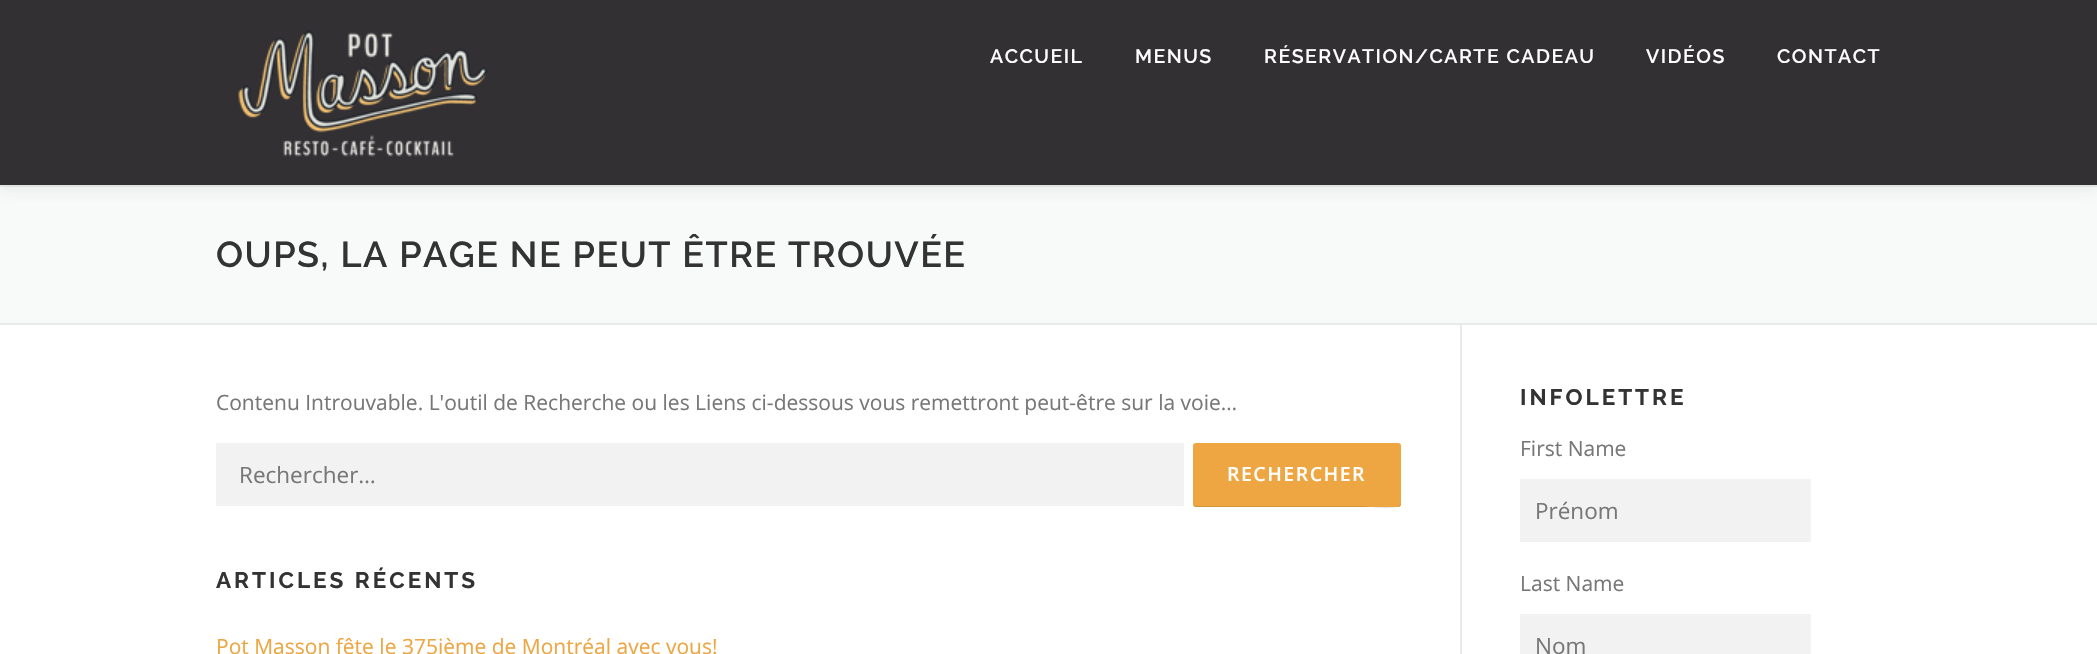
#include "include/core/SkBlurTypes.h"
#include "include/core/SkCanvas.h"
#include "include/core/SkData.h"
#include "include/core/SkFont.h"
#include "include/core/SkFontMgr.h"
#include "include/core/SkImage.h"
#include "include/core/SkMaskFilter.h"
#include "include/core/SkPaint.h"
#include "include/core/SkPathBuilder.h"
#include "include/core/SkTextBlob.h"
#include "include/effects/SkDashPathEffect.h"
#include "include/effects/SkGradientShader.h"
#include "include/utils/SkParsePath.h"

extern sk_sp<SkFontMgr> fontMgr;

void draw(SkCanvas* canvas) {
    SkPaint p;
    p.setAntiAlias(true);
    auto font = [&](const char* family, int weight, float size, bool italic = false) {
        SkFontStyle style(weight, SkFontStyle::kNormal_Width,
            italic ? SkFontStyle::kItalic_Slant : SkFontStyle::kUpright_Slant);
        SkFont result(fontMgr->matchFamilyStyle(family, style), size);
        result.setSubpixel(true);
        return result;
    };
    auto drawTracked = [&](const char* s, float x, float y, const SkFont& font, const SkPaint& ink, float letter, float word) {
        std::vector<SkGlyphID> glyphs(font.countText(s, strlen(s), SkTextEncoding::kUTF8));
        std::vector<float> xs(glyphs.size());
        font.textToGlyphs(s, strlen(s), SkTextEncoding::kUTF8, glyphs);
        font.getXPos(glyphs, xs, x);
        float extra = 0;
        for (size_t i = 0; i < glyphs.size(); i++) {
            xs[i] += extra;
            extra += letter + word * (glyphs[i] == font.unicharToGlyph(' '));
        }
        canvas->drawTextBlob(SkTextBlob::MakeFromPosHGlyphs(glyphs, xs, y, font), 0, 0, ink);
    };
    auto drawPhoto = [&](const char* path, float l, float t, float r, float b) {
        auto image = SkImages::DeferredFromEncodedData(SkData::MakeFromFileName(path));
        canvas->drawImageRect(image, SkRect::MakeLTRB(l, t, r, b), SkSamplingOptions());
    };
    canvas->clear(0xFFFFFFFF);
    p.setColor(0xFFF8F9F9);
    canvas->drawRect(SkRect::MakeLTRB(0, 187, 2097, 323), p);
    p.setColor(0xFFE9E9E9);
    canvas->drawRect(SkRect::MakeLTRB(0, 185, 2097, 187), p);
    p.setColor(0x0F323232);
    p.setMaskFilter(SkMaskFilter::MakeBlur(kNormal_SkBlurStyle, 7.5f));
    canvas->drawRect(SkRect::MakeLTRB(0, 8, 2097, 192), p);
    p.setMaskFilter(nullptr);
    p.setColor(0xFF323033);
    canvas->drawRect(SkRect::MakeLTRB(0, 0, 2097, 185), p);
    drawPhoto("media/1.png", 238, 30, 488, 157);
    auto font1 = font("Raleway", 600, 19.5f);
    p.setColor(0xFFFFFFFF);
    {
        const struct { const char* s; float x, y; } items[] = {
            {"ACCUEIL", 990, 63},
            {"MENUS", 1135, 63},
            {"RÉSERVATION/CARTE CADEAU", 1264, 63},
            {"VIDÉOS", 1646, 63},
            {"CONTACT", 1777, 63},
        };
        for (auto [s, x, y] : items) {
            drawTracked(s, x, y, font1, p, 1.5f, 0);
        }
    }
    p.setColor(0xFFE9E9E9);
    canvas->drawRect(SkRect::MakeLTRB(0, 323, 2097, 325), p);
    auto font2 = font("Raleway", 600, 36);
    p.setColor(0xFF333333);
    drawTracked("OUPS, LA PAGE NE PEUT ÊTRE TROUVÉE", 216, 267, font2, p, 1.5f, 0);
    p.setColor(0xFFE9E9E9);
    canvas->drawRect(SkRect::MakeLTRB(1460, 324, 1462, 654), p);
    auto font3 = font("Open Sans", 400, 21);
    p.setColor(0xFF777777);
    canvas->drawString("Contenu Introuvable. L'outil de Recherche ou les Liens ci-dessous vous remettront peut-être sur la voie…", 216, 410, font3, p);
    p.setColor(0xFFF2F2F2);
    canvas->drawRect(SkRect::MakeLTRB(216, 443, 1184, 506), p);
    auto font4 = font("Open Sans", 400, 22.5f);
    p.setColor(0xFF777777);
    canvas->drawString("Rechercher…", 239, 483, font4, p);
    p.setColor(0xFFEDA642);
    canvas->drawRoundRect(SkRect::MakeLTRB(1193, 443, 1401, 507), 3, 3, p);
    p.setColor(0x1A000000);
    canvas->drawPath(SkPathBuilder().moveTo(1193, 505).cubicTo(1193, 506, 1195, 507, 1196, 507).lineTo(1398, 507).cubicTo(1400, 507, 1401, 506, 1401, 504).lineTo(1401, 502).cubicTo(1401, 513, 1365, 506, 1364, 506).lineTo(1196, 506).close().detach(), p);
    auto font5 = font("Open Sans", 600, 19.5f);
    p.setColor(0xFFFFFFFF);
    drawTracked("RECHERCHER", 1227, 481, font5, p, 1.5f, 0);
    auto font6 = font("Raleway", 700, 22.5f);
    p.setColor(0xFF333333);
    drawTracked("ARTICLES RÉCENTS", 216, 588, font6, p, 3, 0);
    p.setColor(0xFFEDA642);
    canvas->drawString("Pot Masson fête le 375ième de Montréal avec vous!", 216, 654, font3, p);
    p.setColor(0xFF333333);
    drawTracked("INFOLETTRE", 1520, 405, font6, p, 3, 0);
    p.setColor(0xFF777777);
    canvas->drawString("First Name", 1520, 456, font3, p);
    p.setColor(0xFFF2F2F2);
    canvas->drawRect(SkRect::MakeLTRB(1520, 479, 1811, 542), p);
    p.setColor(0xFF777777);
    canvas->drawString("Prénom", 1535, 519, font4, p);
    canvas->drawString("Last Name", 1520, 591, font3, p);
    p.setColor(0xFFF2F2F2);
    canvas->drawRect(SkRect::MakeLTRB(1520, 614, 1811, 654), p);
    p.setColor(0xFF777777);
    canvas->drawString("Nom", 1535, 654, font4, p);
}
